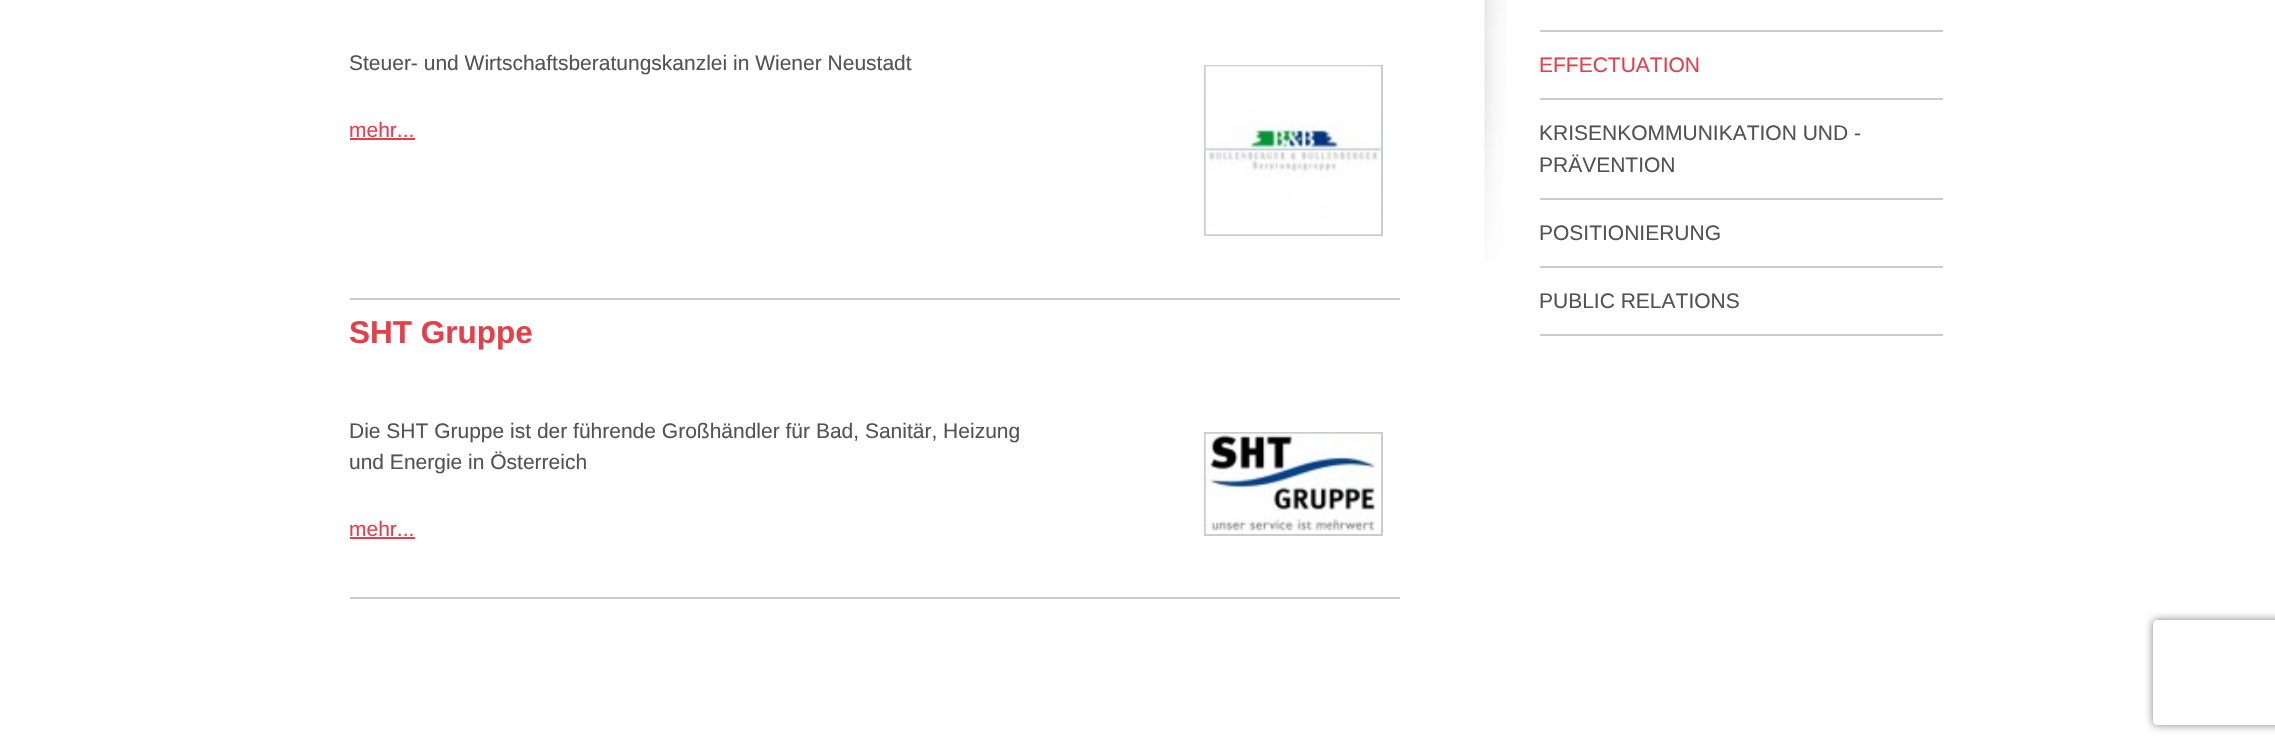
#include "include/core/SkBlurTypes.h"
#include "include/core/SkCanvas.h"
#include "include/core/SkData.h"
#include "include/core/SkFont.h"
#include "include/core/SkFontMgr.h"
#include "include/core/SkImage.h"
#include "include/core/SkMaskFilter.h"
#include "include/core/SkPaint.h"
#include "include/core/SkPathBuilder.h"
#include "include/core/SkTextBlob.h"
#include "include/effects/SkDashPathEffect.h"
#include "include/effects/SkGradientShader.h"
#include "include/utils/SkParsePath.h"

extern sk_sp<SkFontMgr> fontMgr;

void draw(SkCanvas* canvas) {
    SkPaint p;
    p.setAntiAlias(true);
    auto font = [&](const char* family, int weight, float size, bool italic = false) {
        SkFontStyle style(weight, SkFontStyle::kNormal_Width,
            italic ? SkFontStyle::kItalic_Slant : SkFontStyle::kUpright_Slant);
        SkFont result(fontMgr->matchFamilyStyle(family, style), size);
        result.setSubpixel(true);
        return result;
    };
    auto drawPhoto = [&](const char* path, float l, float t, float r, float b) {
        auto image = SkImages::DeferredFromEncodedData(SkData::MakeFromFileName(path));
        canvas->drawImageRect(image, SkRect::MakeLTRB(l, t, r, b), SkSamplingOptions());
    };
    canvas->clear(0xFFFFFFFF);
    auto font1 = font("Liberation Sans", 400, 21);
    p.setColor(0xFF545353);
    canvas->drawString("Steuer- und Wirtschaftsberatungskanzlei in Wiener Neustadt", 349, 70, font1, p);
    p.setStyle(SkPaint::kStroke_Style);
    p.setStrokeWidth(2);
    p.setColor(0xFFCCCCCC);
    canvas->drawRect(SkRect::MakeLTRB(1205, 66, 1382, 235), p);
    drawPhoto("media/1.png", 1205, 66, 1381, 235);
    p.setStyle(SkPaint::kFill_Style);
    p.setColor(0xFFE73F4A);
    canvas->drawString("mehr...", 349, 137, font1, p);
    canvas->drawRect(SkRect::MakeLTRB(350, 138, 415, 140), p);
    p.setColor(0xFFCCCCCC);
    canvas->drawRect(SkRect::MakeLTRB(350, 298, 1400, 300), p);
    auto font2 = font("Liberation Sans", 700, 31.5f);
    p.setColor(0xFFE73F4A);
    canvas->drawString("SHT Gruppe", 349, 343, font2, p);
    p.setColor(0xFF545353);
    canvas->drawString("Die SHT Gruppe ist der führende Großhändler für Bad, Sanitär, Heizung", 349, 438, font1, p);
    canvas->drawString("und Energie in Österreich", 349, 469, font1, p);
    p.setStyle(SkPaint::kStroke_Style);
    p.setColor(0xFFCCCCCC);
    canvas->drawRect(SkRect::MakeLTRB(1205, 433, 1382, 535), p);
    drawPhoto("media/2.png", 1205, 433, 1381, 534);
    p.setStyle(SkPaint::kFill_Style);
    p.setColor(0xFFE73F4A);
    canvas->drawString("mehr...", 349, 536, font1, p);
    canvas->drawRect(SkRect::MakeLTRB(350, 537, 415, 539), p);
    p.setColor(0xFFCCCCCC);
    canvas->drawRect(SkRect::MakeLTRB(350, 597, 1400, 599), p);
    drawPhoto("media/3.png", 1484, 0, 1507, 260);
    canvas->drawRect(SkRect::MakeLTRB(1540, 30, 1943, 32), p);
    canvas->drawRect(SkRect::MakeLTRB(1540, 98, 1943, 100), p);
    p.setColor(0xFFE73F4A);
    canvas->drawString("EFFECTUATION", 1539, 72, font1, p);
    p.setColor(0xFFCCCCCC);
    canvas->drawRect(SkRect::MakeLTRB(1540, 198, 1943, 200), p);
    p.setColor(0xFF545353);
    canvas->drawString("KRISENKOMMUNIKATION UND -", 1539, 140, font1, p);
    canvas->drawString("PRÄVENTION", 1539, 172, font1, p);
    p.setColor(0xFFCCCCCC);
    canvas->drawRect(SkRect::MakeLTRB(1540, 266, 1943, 268), p);
    p.setColor(0xFF545353);
    canvas->drawString("POSITIONIERUNG", 1539, 240, font1, p);
    p.setColor(0xFFCCCCCC);
    canvas->drawRect(SkRect::MakeLTRB(1540, 334, 1943, 336), p);
    p.setColor(0xFF545353);
    canvas->drawString("PUBLIC RELATIONS", 1539, 308, font1, p);
    canvas->save();
    canvas->clipPath(SkPathBuilder(SkPathFillType::kEvenOdd).moveTo(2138, 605).lineTo(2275, 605).lineTo(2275, 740).lineTo(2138, 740).close().moveTo(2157, 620).lineTo(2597, 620).cubicTo(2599, 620, 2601, 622, 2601, 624).lineTo(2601, 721).cubicTo(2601, 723, 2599, 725, 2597, 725).lineTo(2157, 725).cubicTo(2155, 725, 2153, 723, 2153, 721).lineTo(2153, 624).cubicTo(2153, 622, 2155, 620, 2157, 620).close().detach(), true);
    p.setColor(0xFF808080);
    p.setMaskFilter(SkMaskFilter::MakeBlur(kNormal_SkBlurStyle, 4.5f));
    canvas->drawRoundRect(SkRect::MakeLTRB(2153, 620, 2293, 725), 4, 4, p);
    p.setMaskFilter(nullptr);
    canvas->restore();
}
